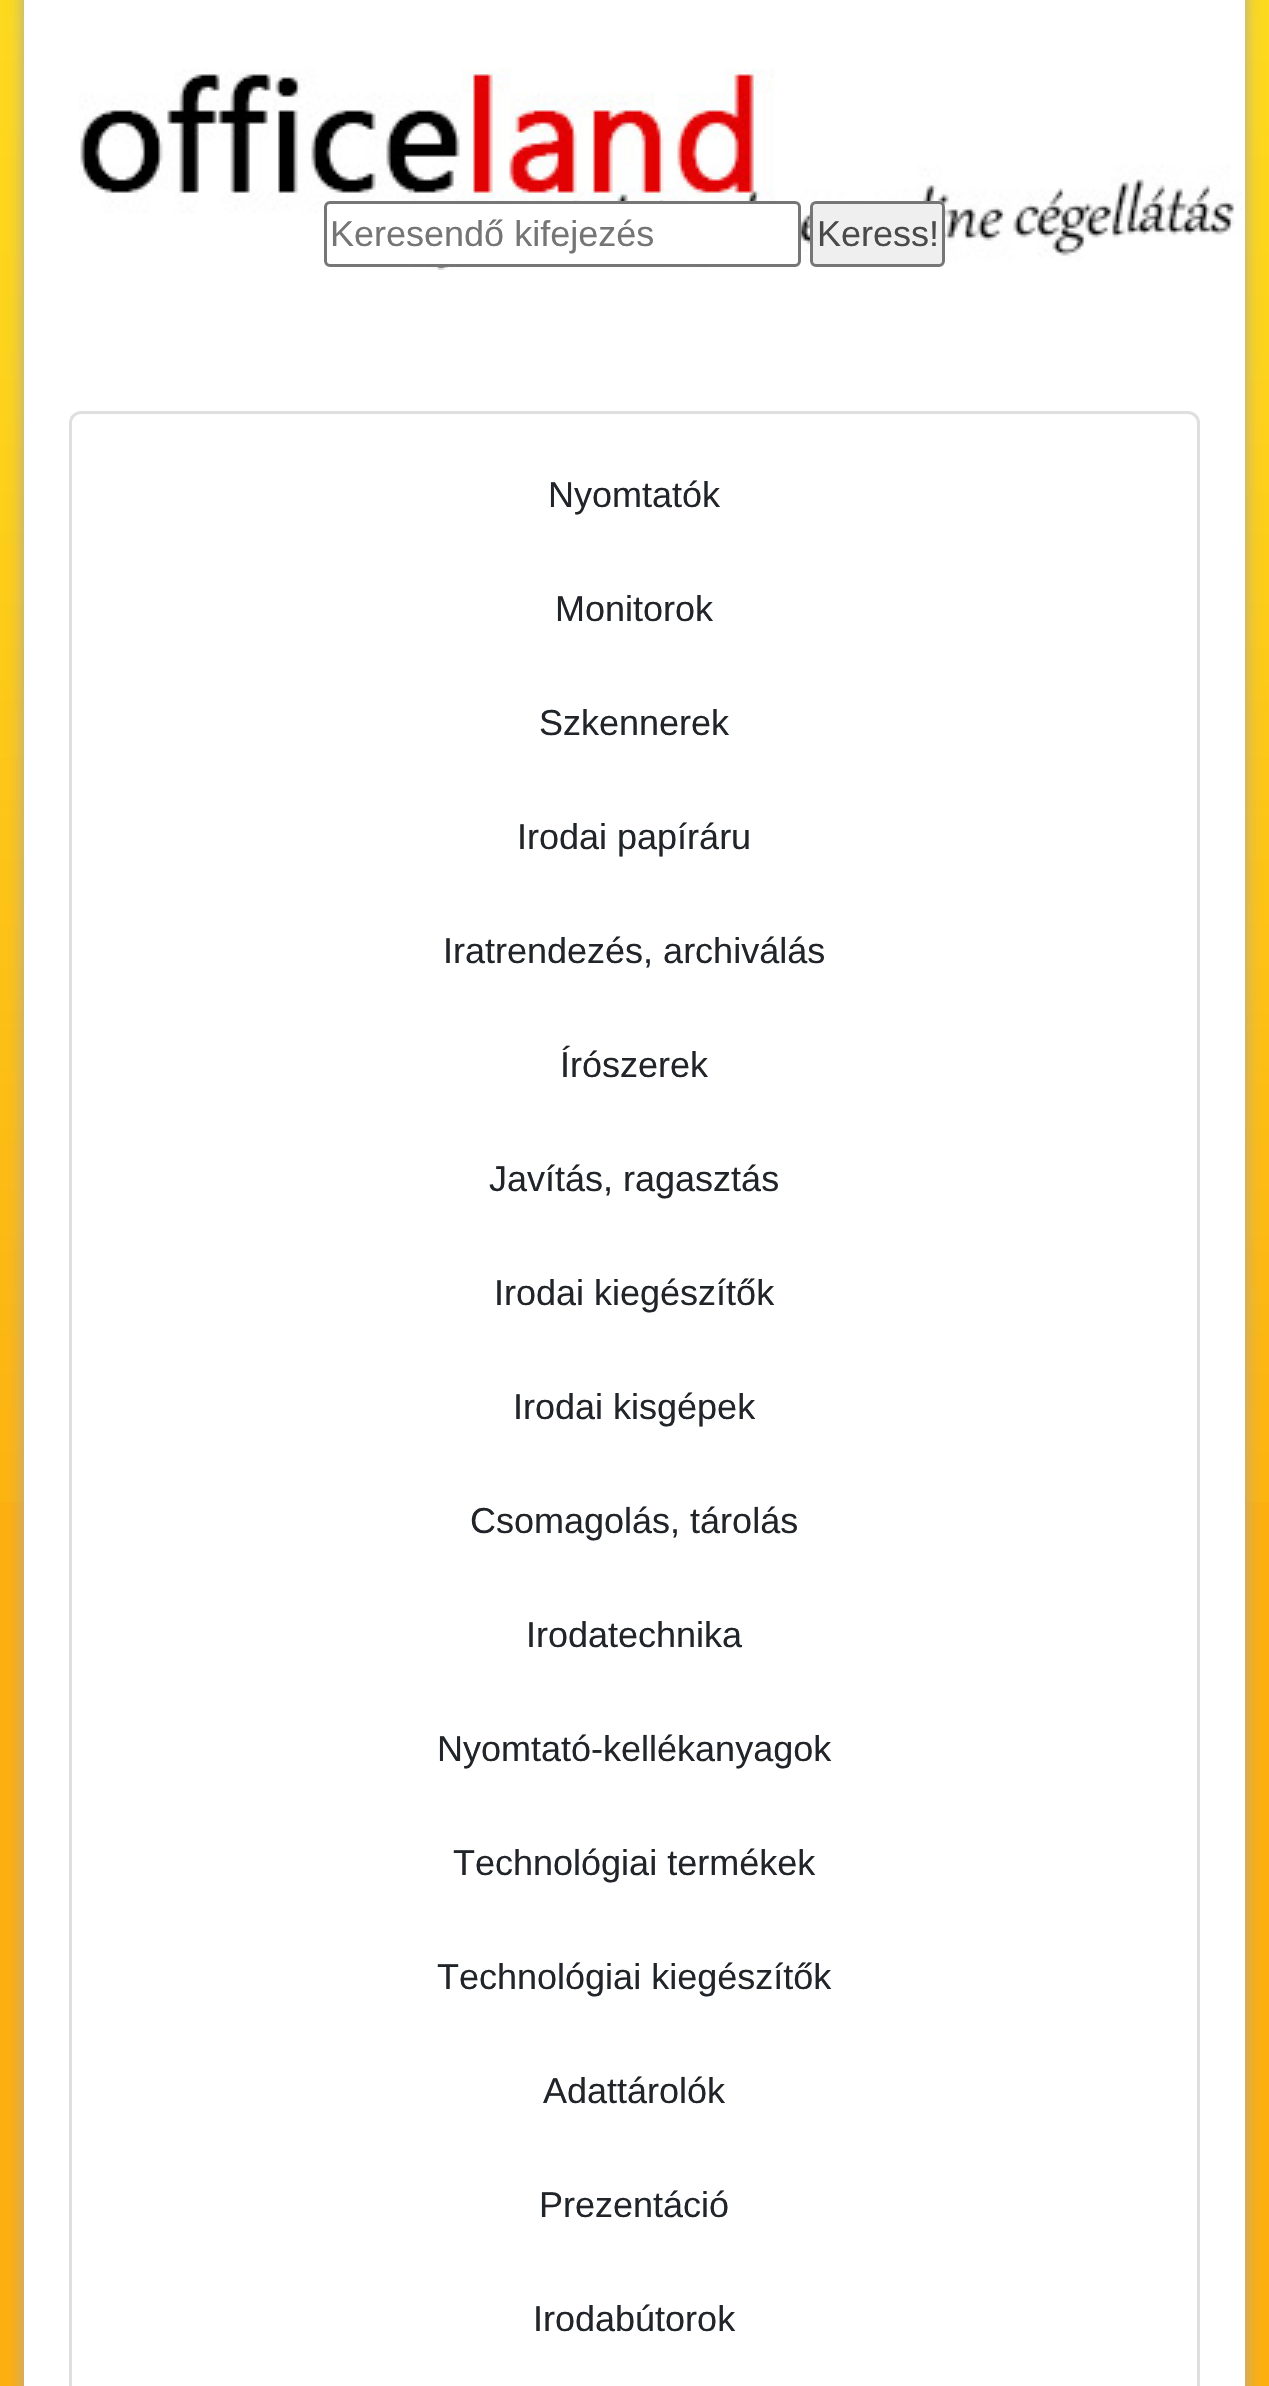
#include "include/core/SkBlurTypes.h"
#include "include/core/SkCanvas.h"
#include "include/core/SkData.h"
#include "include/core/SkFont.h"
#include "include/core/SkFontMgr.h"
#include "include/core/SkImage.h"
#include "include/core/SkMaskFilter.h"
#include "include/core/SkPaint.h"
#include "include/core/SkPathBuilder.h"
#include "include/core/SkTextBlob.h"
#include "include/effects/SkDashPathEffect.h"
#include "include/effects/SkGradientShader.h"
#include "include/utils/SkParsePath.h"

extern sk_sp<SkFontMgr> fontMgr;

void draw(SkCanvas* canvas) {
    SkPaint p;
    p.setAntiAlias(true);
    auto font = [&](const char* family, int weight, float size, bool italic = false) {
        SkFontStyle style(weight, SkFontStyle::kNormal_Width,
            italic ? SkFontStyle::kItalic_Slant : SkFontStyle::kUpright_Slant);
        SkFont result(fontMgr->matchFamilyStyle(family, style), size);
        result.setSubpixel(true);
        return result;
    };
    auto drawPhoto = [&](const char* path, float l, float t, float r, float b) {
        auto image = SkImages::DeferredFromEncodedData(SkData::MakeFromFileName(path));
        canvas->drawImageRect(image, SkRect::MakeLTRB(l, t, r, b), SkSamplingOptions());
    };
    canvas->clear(0xFFFDAF0F);
    drawPhoto("media/1.png", 0, 0, 1269, 1502);
    p.setColor(0xFFAAAAAA);
    p.setMaskFilter(SkMaskFilter::MakeBlur(kNormal_SkBlurStyle, 7.5f));
    canvas->drawRect(SkRect::MakeLTRB(24, -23, 1245, 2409), p);
    p.setMaskFilter(nullptr);
    p.setColor(0xFFFFFFFF);
    canvas->drawRect(SkRect::MakeLTRB(24, 0, 1245, 2386), p);
    drawPhoto("media/2.png", 79, 68, 1242, 270);
    canvas->drawRoundRect(SkRect::MakeLTRB(325.5f, 202.5f, 799.5f, 265.5f), 4.5f, 4.5f, p);
    p.setStyle(SkPaint::kStroke_Style);
    p.setStrokeWidth(3);
    p.setColor(0xFF767676);
    canvas->drawRoundRect(SkRect::MakeLTRB(325.5f, 202.5f, 799.5f, 265.5f), 4.5f, 4.5f, p);
    auto font1 = font("Liberation Sans", 400, 36);
    p.setStyle(SkPaint::kFill_Style);
    p.setColor(0xFF757575);
    canvas->drawString("Keresendő kifejezés", 330, 246, font1, p);
    p.setColor(0xFFEFEFEF);
    canvas->drawRoundRect(SkRect::MakeLTRB(811.5f, 202.5f, 943.5f, 265.5f), 4.5f, 4.5f, p);
    p.setStyle(SkPaint::kStroke_Style);
    p.setColor(0xFF767676);
    canvas->drawRoundRect(SkRect::MakeLTRB(811.5f, 202.5f, 943.5f, 265.5f), 4.5f, 4.5f, p);
    p.setStyle(SkPaint::kFill_Style);
    p.setColor(0xFF4A4A4A);
    canvas->drawString("Keress!", 817, 246, font1, p);
    p.setStyle(SkPaint::kStroke_Style);
    p.setColor(0xFFDFDFDF);
    canvas->drawRoundRect(SkRect::MakeLTRB(70.5f, 412.5f, 1198.5f, 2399.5f), 10.5f, 10.5f, p);
    p.setStyle(SkPaint::kFill_Style);
    p.setColor(0xFF212529);
    {
        const struct { const char* s; float x, y; } items[] = {
            {"Nyomtatók", 548, 507},
            {"Monitorok", 555, 621},
            {"Szkennerek", 539, 735},
            {"Irodai papíráru", 517, 849},
            {"Iratrendezés, archiválás", 443, 963},
            {"Írószerek", 560, 1077},
            {"Javítás, ragasztás", 489, 1191},
            {"Irodai kiegészítők", 494, 1305},
            {"Irodai kisgépek", 513, 1419},
            {"Csomagolás, tárolás", 470, 1533},
            {"Irodatechnika", 526, 1647},
            {"Nyomtató-kellékanyagok", 437, 1761},
            {"Technológiai termékek", 453, 1875},
            {"Technológiai kiegészítők", 437, 1989},
            {"Adattárolók", 543, 2103},
            {"Prezentáció", 539, 2217},
            {"Irodabútorok", 533, 2331},
        };
        for (auto [s, x, y] : items) {
            canvas->drawString(s, x, y, font1, p);
        }
    }
}
